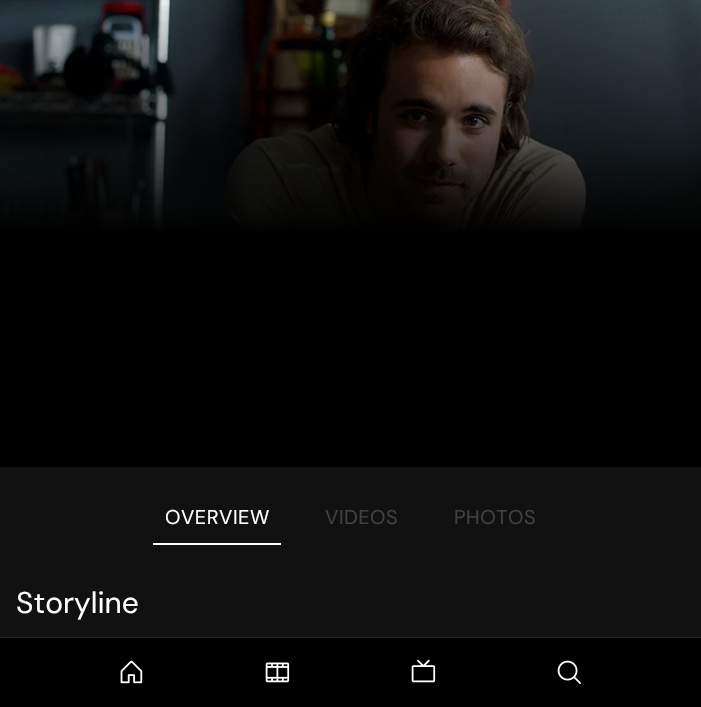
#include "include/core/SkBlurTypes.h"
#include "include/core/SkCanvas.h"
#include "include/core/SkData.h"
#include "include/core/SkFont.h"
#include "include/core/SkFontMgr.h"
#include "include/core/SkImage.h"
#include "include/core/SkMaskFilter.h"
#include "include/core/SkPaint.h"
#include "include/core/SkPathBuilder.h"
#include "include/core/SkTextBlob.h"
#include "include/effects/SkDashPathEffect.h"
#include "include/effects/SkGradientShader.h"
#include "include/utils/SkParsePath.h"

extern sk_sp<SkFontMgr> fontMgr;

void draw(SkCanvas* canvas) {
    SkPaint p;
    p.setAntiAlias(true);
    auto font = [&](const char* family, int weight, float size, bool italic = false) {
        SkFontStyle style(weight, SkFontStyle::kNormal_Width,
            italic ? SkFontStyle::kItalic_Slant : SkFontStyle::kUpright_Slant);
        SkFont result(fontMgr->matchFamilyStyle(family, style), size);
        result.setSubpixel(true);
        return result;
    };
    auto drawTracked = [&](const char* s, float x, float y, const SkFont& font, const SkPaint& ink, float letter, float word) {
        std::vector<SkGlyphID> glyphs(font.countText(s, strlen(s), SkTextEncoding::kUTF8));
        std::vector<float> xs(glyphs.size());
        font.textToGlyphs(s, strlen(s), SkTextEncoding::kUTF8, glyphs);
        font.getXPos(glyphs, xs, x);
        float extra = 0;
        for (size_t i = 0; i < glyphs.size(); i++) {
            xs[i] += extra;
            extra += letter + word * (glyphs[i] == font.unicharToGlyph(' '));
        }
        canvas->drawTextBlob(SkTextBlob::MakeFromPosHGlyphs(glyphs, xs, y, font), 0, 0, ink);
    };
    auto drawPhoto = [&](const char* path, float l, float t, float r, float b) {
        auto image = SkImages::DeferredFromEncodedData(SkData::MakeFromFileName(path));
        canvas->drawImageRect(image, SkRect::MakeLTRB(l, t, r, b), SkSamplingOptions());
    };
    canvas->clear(0xFF111111);
    drawPhoto("media/1.png", 0, 0, 701, 232);
    {
        const SkColor colors[] = {0xFF000000, 0xFF000000, 0x00000000};
        const float stops[] = {0, 0.5f, 1};
        const SkPoint ends[] = {{351, 467}, {351, 0}};
        p.setShader(SkGradientShader::MakeLinear(ends, colors, stops, 3, SkTileMode::kClamp));
        p.setAlpha(255);
    }
    canvas->drawRect(SkRect::MakeLTRB(0, 5, 701, 467), p);
    p.setShader(nullptr);
    p.setColor(0xFFFFFFFF);
    canvas->drawRect(SkRect::MakeLTRB(153, 543, 281, 545), p);
    auto font1 = font("DM Sans", 400, 20);
    drawTracked("OVERVIEW", 165, 524, font1, p, 0.5f, 0);
    p.setColor(0xFF414141);
    drawTracked("VIDEOS", 325, 524, font1, p, 0.5f, 0);
    drawTracked("PHOTOS", 454, 524, font1, p, 0.5f, 0);
    auto font2 = font("DM Sans", 400, 30);
    p.setColor(0xFFFFFFFF);
    canvas->drawString("Storyline", 16, 613, font2, p);
    p.setColor(0xFF000000);
    canvas->drawRect(SkRect::MakeLTRB(0, 638, 701, 707), p);
    p.setColor(0xFF1F2123);
    canvas->drawRect(SkRect::MakeLTRB(0, 637, 701, 638), p);
    drawPhoto("media/2.png", 120, 660, 143, 684);
    drawPhoto("media/3.png", 265, 662, 290, 683);
    drawPhoto("media/4.png", 411, 659, 436, 683);
    drawPhoto("media/5.png", 557, 660, 582, 684);
}
